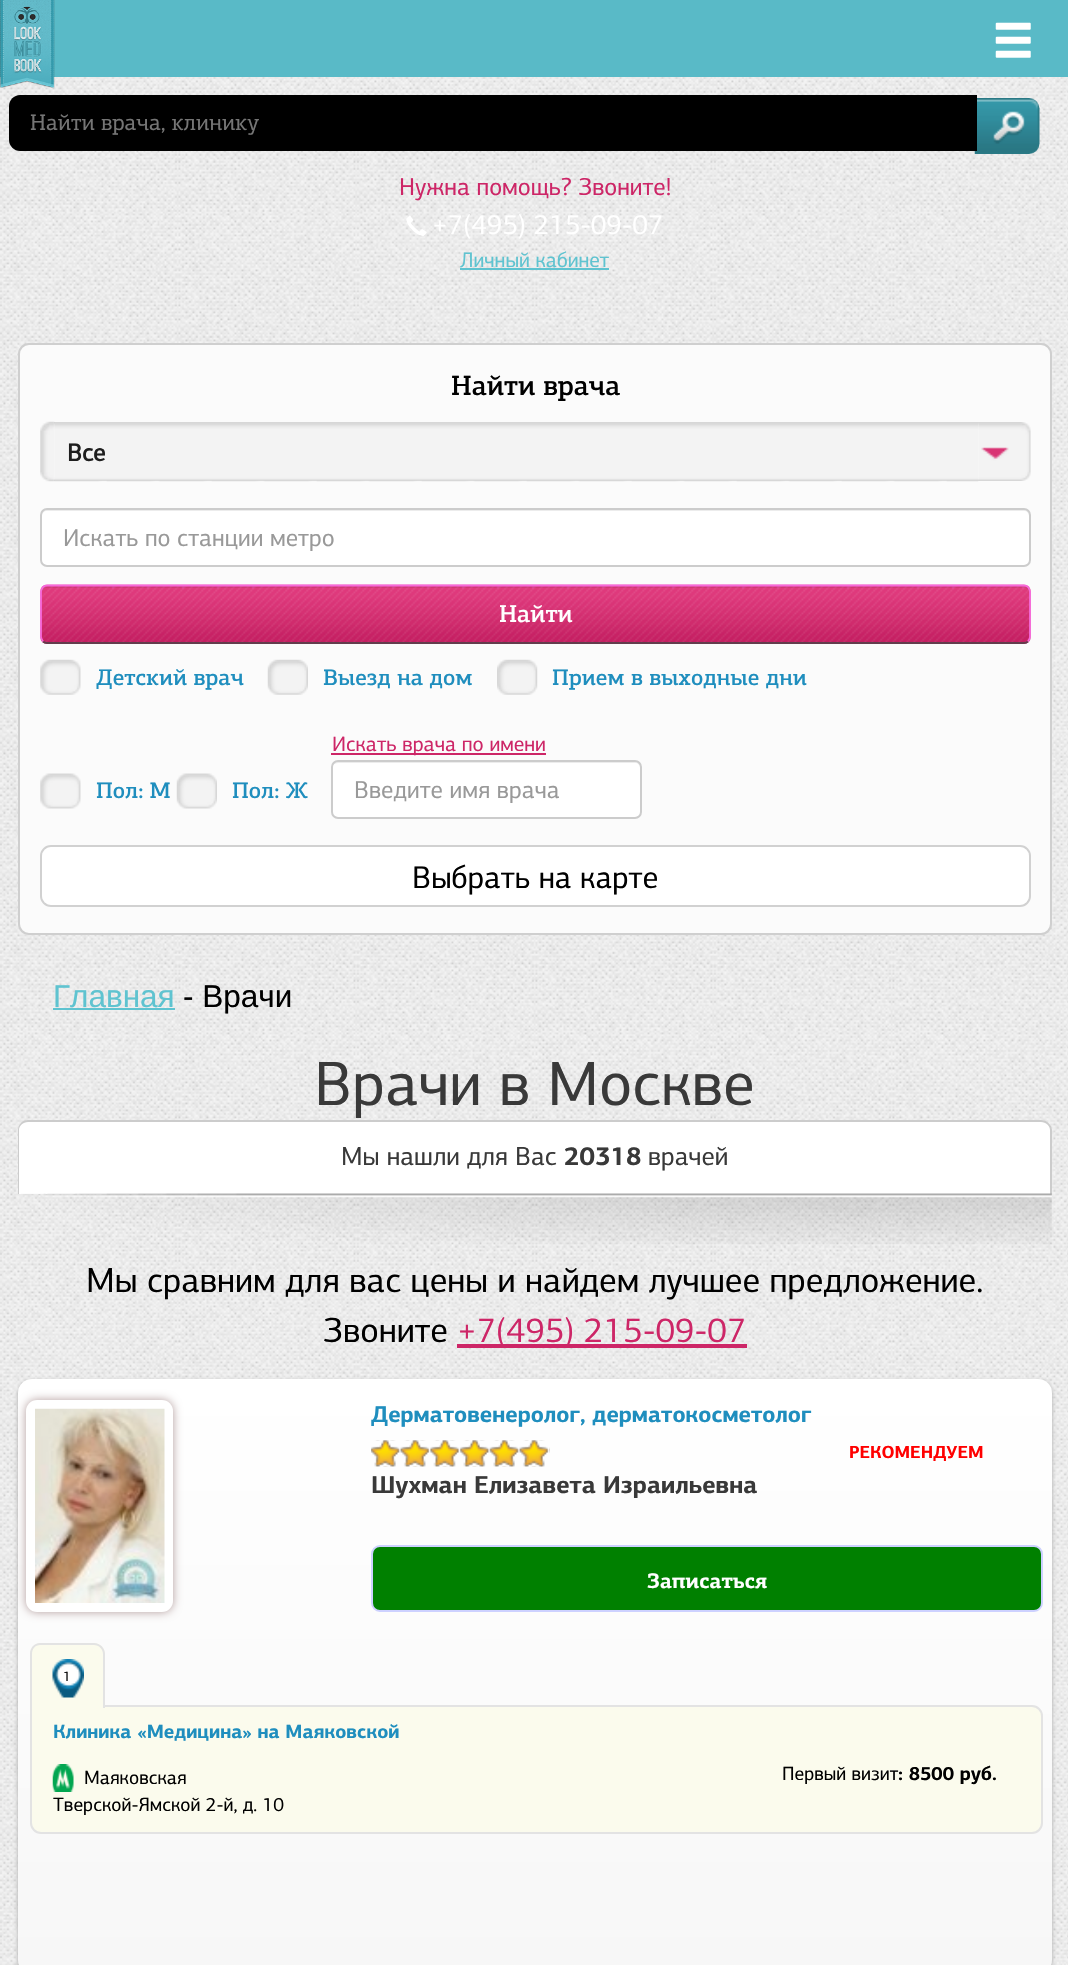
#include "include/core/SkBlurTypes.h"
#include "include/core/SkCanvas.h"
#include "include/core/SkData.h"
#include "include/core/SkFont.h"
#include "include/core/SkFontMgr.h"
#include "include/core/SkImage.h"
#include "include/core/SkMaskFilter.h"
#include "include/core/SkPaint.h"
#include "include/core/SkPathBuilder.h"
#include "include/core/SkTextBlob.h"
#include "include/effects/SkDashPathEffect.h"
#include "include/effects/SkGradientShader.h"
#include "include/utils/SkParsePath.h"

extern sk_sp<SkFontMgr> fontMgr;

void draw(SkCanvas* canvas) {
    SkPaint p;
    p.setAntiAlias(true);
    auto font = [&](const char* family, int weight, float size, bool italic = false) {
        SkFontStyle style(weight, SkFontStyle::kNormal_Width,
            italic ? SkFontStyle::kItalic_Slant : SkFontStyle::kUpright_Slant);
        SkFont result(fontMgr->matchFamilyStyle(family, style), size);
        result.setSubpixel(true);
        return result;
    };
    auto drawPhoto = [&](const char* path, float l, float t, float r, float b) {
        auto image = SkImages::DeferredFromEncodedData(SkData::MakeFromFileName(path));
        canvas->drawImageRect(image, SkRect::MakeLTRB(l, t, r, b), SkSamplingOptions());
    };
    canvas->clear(0xFF59BAC7);
    drawPhoto("media/3.png", 0, 77, 1068, 1965);
    drawPhoto("media/1.png", 0, 0, 55, 88);
    drawPhoto("media/2.png", 995, 22, 1031, 58);
    drawPhoto("media/4.png", 974, 98, 1040, 154);
    p.setColor(0xFF000000);
    canvas->drawPath(SkPathBuilder().moveTo(20, 95).lineTo(977, 95).lineTo(977, 151).lineTo(20, 151).cubicTo(14, 151, 9, 146, 9, 140).lineTo(9, 106).cubicTo(9, 100, 14, 95, 20, 95).close().detach(), p);
    auto font1 = font("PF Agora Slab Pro", 400, 22.75f);
    p.setColor(0xFF757575);
    canvas->drawString("Найти врача, клинику", 30, 130, font1, p);
    auto font2 = font("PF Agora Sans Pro", 400, 24.5f);
    p.setColor(0xFFCD2667);
    canvas->drawString("Нужна помощь? Звоните!", 399, 195, font2, p);
    drawPhoto("media/5.png", 406, 215, 427, 236);
    auto font3 = font("PF Agora Sans Pro", 400, 28);
    p.setColor(0xFFFFFFFF);
    canvas->drawString("+7(495) 215-09-07", 432, 234, font3, p);
    auto font4 = font("PF Agora Sans Pro", 400, 21);
    p.setColor(0xFF5FC3D0);
    canvas->drawString("Личный кабинет", 460, 267, font4, p);
    canvas->drawRect(SkRect::MakeLTRB(460, 268, 609, 270), p);
    p.setColor(0xFFFBFBFB);
    canvas->drawRoundRect(SkRect::MakeLTRB(19, 344, 1051, 934), 10, 10, p);
    p.setStyle(SkPaint::kStroke_Style);
    p.setStrokeWidth(2);
    p.setColor(0xFFCFCFCF);
    canvas->drawRoundRect(SkRect::MakeLTRB(19, 344, 1051, 934), 10, 10, p);
    auto font5 = font("PF Agora Slab Pro", 500, 28);
    p.setStyle(SkPaint::kFill_Style);
    p.setColor(0xFF000000);
    canvas->drawString("Найти врача", 451, 395, font5, p);
    drawPhoto("media/6.png", 40, 421, 55, 482);
    drawPhoto("media/7.png", 54, 422, 979, 482);
    auto font6 = font("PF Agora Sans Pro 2", 700, 24.5f);
    p.setColor(0xFF1E1E1E);
    canvas->drawString("Все", 67, 461, font6, p);
    drawPhoto("media/8.png", 978, 422, 1031, 481);
    p.setColor(0xFFFFFFFF);
    canvas->drawRoundRect(SkRect::MakeLTRB(40, 508, 1031, 567), 7, 7, p);
    p.setColor(0xFFECECEC);
    canvas->drawPath(SkPathBuilder().moveTo(47, 511).lineTo(1024, 511).cubicTo(1027, 511, 1029, 513, 1029, 516).lineTo(1029, 514).cubicTo(1029, 511, 1027, 509, 1024, 509).lineTo(47, 509).cubicTo(44, 509, 42, 511, 42, 514).lineTo(42, 516).cubicTo(42, 513, 44, 511, 47, 511).close().detach(), p);
    p.setStyle(SkPaint::kStroke_Style);
    p.setColor(0xFFCCCCCC);
    canvas->drawRoundRect(SkRect::MakeLTRB(41, 509, 1030, 566), 6, 6, p);
    p.setStyle(SkPaint::kFill_Style);
    p.setColor(0xFF999999);
    canvas->drawString("Искать по станции метро", 63, 546, font2, p);
    drawPhoto("media/9.png", 40, 584, 1031, 644);
    p.setColor(0x12000000);
    canvas->drawPath(SkPathBuilder().moveTo(47, 588).lineTo(1024, 588).cubicTo(1027, 588, 1029, 590, 1029, 593).lineTo(1029, 591).cubicTo(1029, 588, 1027, 586, 1024, 586).lineTo(47, 586).cubicTo(44, 586, 42, 588, 42, 591).lineTo(42, 593).cubicTo(42, 590, 44, 588, 47, 588).close().detach(), p);
    p.setStyle(SkPaint::kStroke_Style);
    p.setStrokeWidth(1.8f);
    p.setColor(0xFF623D4C);
    canvas->drawPath(SkPathBuilder().moveTo(1028, 641.5f).cubicTo(1027, 642.5f, 1025.5f, 643, 1024, 643).lineTo(47, 643).cubicTo(45.5f, 643, 44, 642.5f, 43, 641.5f).detach(), p);
    p.setColor(0xFFF769DC);
    canvas->drawPath(SkPathBuilder().moveTo(43, 641.5f).cubicTo(42, 640, 41, 638.5f, 41, 637).lineTo(41, 591.5f).cubicTo(41, 590, 42, 588.5f, 43, 587).cubicTo(44, 586, 45.5f, 585.5f, 47, 585.5f).lineTo(1024, 585.5f).cubicTo(1025.5f, 585.5f, 1027, 586, 1028, 587).cubicTo(1029, 588.5f, 1030, 590, 1030, 591.5f).lineTo(1030, 637).cubicTo(1030, 638.5f, 1029, 640, 1028, 641.5f).detach(), p);
    auto font7 = font("PF Agora Slab Pro", 500, 24.5f);
    p.setStyle(SkPaint::kFill_Style);
    p.setColor(0xFFFFFFFF);
    canvas->drawString("Найти", 499, 622, font7, p);
    drawPhoto("media/10.png", 40, 659, 81, 695);
    auto font8 = font("PF Agora Slab Pro", 500, 22.75f);
    p.setColor(0xFF1F8EBE);
    canvas->drawString("Детский врач", 96, 685, font8, p);
    drawPhoto("media/11.png", 267, 659, 308, 695);
    canvas->drawString("Выезд на дом", 323, 685, font8, p);
    drawPhoto("media/12.png", 497, 659, 538, 695);
    canvas->drawString("Прием в выходные дни", 552, 685, font8, p);
    drawPhoto("media/13.png", 40, 773, 81, 809);
    canvas->drawString("Пол: М", 96, 798, font8, p);
    drawPhoto("media/14.png", 176, 773, 217, 809);
    canvas->drawString("Пол: Ж", 232, 798, font8, p);
    p.setColor(0xFFCD2667);
    canvas->drawRect(SkRect::MakeLTRB(331, 753, 546, 755), p);
    canvas->drawString("Искать врача по имени", 332, 751, font4, p);
    p.setColor(0xFFFFFFFF);
    canvas->drawRoundRect(SkRect::MakeLTRB(331, 760, 642, 819), 7, 7, p);
    p.setColor(0xFFECECEC);
    canvas->drawPath(SkPathBuilder().moveTo(338, 763).lineTo(635, 763).cubicTo(638, 763, 640, 765, 640, 768).lineTo(640, 815).cubicTo(641, 814, 641, 813, 641, 812).lineTo(641, 766).cubicTo(641, 763, 639, 761, 636, 761).lineTo(338, 761).cubicTo(336, 761, 333, 763, 333, 765).cubicTo(334, 764, 336, 763, 338, 763).close().detach(), p);
    p.setStyle(SkPaint::kStroke_Style);
    p.setStrokeWidth(2);
    p.setColor(0xFFCCCCCC);
    canvas->drawRoundRect(SkRect::MakeLTRB(332, 761, 641, 818), 6, 6, p);
    p.setStyle(SkPaint::kFill_Style);
    p.setColor(0xFF999999);
    canvas->drawString("Введите имя врача", 354, 798, font2, p);
    p.setColor(0xFFFFFFFF);
    canvas->drawRoundRect(SkRect::MakeLTRB(41, 846, 1030, 906), 10, 10, p);
    p.setStyle(SkPaint::kStroke_Style);
    p.setColor(0xFFD1D1D1);
    canvas->drawRoundRect(SkRect::MakeLTRB(41, 846, 1030, 906), 10, 10, p);
    p.setStyle(SkPaint::kFill_Style);
    p.setColor(0x66FFFFFF);
    canvas->drawRoundRect(SkRect::MakeLTRB(42, 847, 1029, 905), 9, 9, p);
    auto font9 = font("PF Agora Sans Pro", 400, 31.5f);
    p.setColor(0xFF000000);
    canvas->drawString("Выбрать на карте", 412, 888, font9, p);
    auto font10 = font("Liberation Sans", 400, 31.5f);
    p.setColor(0xFF5FC3D0);
    canvas->drawString("Главная", 53, 1007, font10, p);
    canvas->drawRect(SkRect::MakeLTRB(53, 1008, 175, 1010), p);
    p.setColor(0xFF000000);
    canvas->drawString("- Врачи", 183, 1007, font10, p);
    auto font11 = font("PF Agora Sans Pro", 400, 63);
    p.setColor(0xFF393939);
    canvas->drawString("Врачи в Москве", 314, 1105, font11, p);
    p.setColor(0xFFFFFFFF);
    canvas->drawPath(SkPathBuilder().moveTo(29, 1120).lineTo(1041, 1120).cubicTo(1047, 1120, 1052, 1125, 1052, 1131).lineTo(1052, 1194).lineTo(18, 1194).lineTo(18, 1131).cubicTo(18, 1125, 23, 1120, 29, 1120).close().detach(), p);
    p.setColor(0xFFCCCCCC);
    canvas->drawPath(SkPathBuilder(SkPathFillType::kEvenOdd).moveTo(28, 1120).lineTo(1041, 1120).cubicTo(1047, 1120, 1052, 1125, 1052, 1130).lineTo(1052, 1194).lineTo(18, 1194).lineTo(18, 1130).cubicTo(18, 1125, 22, 1120, 28, 1120).close().moveTo(28, 1122).lineTo(1041, 1122).cubicTo(1046, 1122, 1050, 1126, 1050, 1130).lineTo(1050, 1194).lineTo(19, 1194).lineTo(19, 1130).cubicTo(19, 1126, 23, 1122, 28, 1122).close().detach(), p);
    auto font12 = font("PF Agora Sans Pro", 400, 26.25f);
    p.setColor(0xFF393939);
    canvas->drawString("Мы нашли для Вас", 341, 1165, font12, p);
    auto font13 = font("PF Agora Sans Pro", 700, 26.25f);
    canvas->drawString("20318", 564, 1165, font13, p);
    canvas->drawString("врачей", 648, 1165, font12, p);
    drawPhoto("media/15.png", 21, 1193, 1052, 1244);
    auto font14 = font("PF Agora Sans Pro", 400, 35);
    p.setColor(0xFF000000);
    canvas->drawString("Мы сравним для вас цены и найдем лучшее предложение.", 86, 1292, font14, p);
    canvas->drawString("Звоните", 323, 1342, font14, p);
    p.setColor(0xFFCD2667);
    canvas->drawRect(SkRect::MakeLTRB(457, 1344, 747, 1348), p);
    canvas->drawString("+7(495) 215-09-07", 457, 1342, font14, p);
    p.setColor(0xFFA9A9A9);
    p.setMaskFilter(SkMaskFilter::MakeBlur(kNormal_SkBlurStyle, 2));
    canvas->drawRoundRect(SkRect::MakeLTRB(18, 1381, 1052, 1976), 14, 14, p);
    p.setMaskFilter(nullptr);
    {
        const SkColor colors[] = {0xFFFFFFFF, 0xFFF7F7F7};
        const float stops[] = {0, 1};
        const SkPoint ends[] = {{535, 1379}, {535, 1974}};
        p.setShader(SkGradientShader::MakeLinear(ends, colors, stops, 2, SkTileMode::kClamp));
        p.setAlpha(255);
    }
    canvas->drawRoundRect(SkRect::MakeLTRB(18, 1379, 1052, 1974), 14, 14, p);
    p.setShader(nullptr);
    p.setColor(0xFFB29C9C);
    p.setMaskFilter(SkMaskFilter::MakeBlur(kNormal_SkBlurStyle, 5));
    canvas->drawRoundRect(SkRect::MakeLTRB(26, 1400, 173, 1612), 11, 11, p);
    p.setMaskFilter(nullptr);
    p.setColor(0xFFFFFFFF);
    canvas->drawRoundRect(SkRect::MakeLTRB(26, 1400, 173, 1612), 11, 11, p);
    drawPhoto("media/16.png", 35, 1408, 165, 1603);
    auto font15 = font("PF Agora Sans Pro", 700, 22.75f);
    p.setColor(0xFF1F8EBE);
    canvas->drawString("Дерматовенеролог, дерматокосметолог", 371, 1422, font15, p);
    drawPhoto("media/17.png", 371, 1440, 550, 1467);
    drawPhoto("media/18.png", 371, 1440, 550, 1467);
    auto font16 = font("PF Agora Sans Pro", 700, 17.5f);
    p.setColor(0xFFFF0000);
    canvas->drawString("РЕКОМЕНДУЕМ", 849, 1458, font16, p);
    auto font17 = font("PF Agora Sans Pro", 700, 24.5f);
    p.setColor(0xFF393939);
    canvas->drawString("Шухман Елизавета Израильевна", 371, 1493, font17, p);
    p.setColor(0xFF008000);
    canvas->drawRoundRect(SkRect::MakeLTRB(372, 1546, 1042, 1611), 8, 8, p);
    p.setStyle(SkPaint::kStroke_Style);
    p.setColor(0xFFCDD1FF);
    canvas->drawRoundRect(SkRect::MakeLTRB(372, 1546, 1042, 1611), 8, 8, p);
    auto font18 = font("PF Agora Slab Pro", 700, 21);
    p.setStyle(SkPaint::kFill_Style);
    p.setColor(0xFFFFFFFF);
    canvas->drawString("Записаться", 647, 1588, font18, p);
    p.setColor(0xFFFBFBED);
    canvas->drawPath(SkPathBuilder().moveTo(31, 1706).lineTo(1032, 1706).cubicTo(1037.5f, 1706, 1042, 1710.5f, 1042, 1716).lineTo(1042, 1823).cubicTo(1042, 1828.5f, 1037.5f, 1833, 1032, 1833).lineTo(41, 1833).cubicTo(35.5f, 1833, 31, 1828.5f, 31, 1823).close().detach(), p);
    p.setStyle(SkPaint::kStroke_Style);
    p.setColor(0xFFE3E3E3);
    canvas->drawPath(SkPathBuilder().moveTo(31, 1706).lineTo(1032, 1706).cubicTo(1037.5f, 1706, 1042, 1710.5f, 1042, 1716).lineTo(1042, 1823).cubicTo(1042, 1828.5f, 1037.5f, 1833, 1032, 1833).lineTo(41, 1833).cubicTo(35.5f, 1833, 31, 1828.5f, 31, 1823).close().detach(), p);
    p.setStyle(SkPaint::kFill_Style);
    p.setColor(0xFFFBFBED);
    canvas->drawPath(SkPathBuilder().moveTo(41, 1643).lineTo(94, 1643).cubicTo(100, 1643, 105, 1648, 105, 1654).lineTo(105, 1708).lineTo(30, 1708).lineTo(30, 1654).cubicTo(30, 1648, 35, 1643, 41, 1643).close().detach(), p);
    p.setColor(0xFFE3E3E3);
    canvas->drawPath(SkPathBuilder(SkPathFillType::kEvenOdd).moveTo(40, 1643).lineTo(94, 1643).cubicTo(100, 1643, 105, 1648, 105, 1654).lineTo(105, 1708).lineTo(30, 1708).lineTo(30, 1654).cubicTo(30, 1648, 34, 1643, 40, 1643).close().moveTo(40, 1645).lineTo(94, 1645).cubicTo(99, 1645, 103, 1649, 103, 1654).lineTo(103, 1708).lineTo(32, 1708).lineTo(32, 1654).cubicTo(32, 1649, 35, 1645, 40, 1645).close().detach(), p);
    drawPhoto("media/19.png", 52, 1659, 84, 1698);
    auto font19 = font("PF Agora Sans Pro", 400, 14);
    p.setColor(0xFF000000);
    canvas->drawString("1", 63, 1681, font19, p);
    auto font20 = font("PF Agora Sans Pro", 700, 19.25f);
    p.setColor(0xFF1F8EBE);
    canvas->drawString("Клиника «Медицина» на Маяковской", 53, 1738, font20, p);
    drawPhoto("media/20.png", 52, 1764, 74, 1792);
    auto font21 = font("PF Agora Sans Pro", 400, 19.25f);
    p.setColor(0xFF000000);
    {
        const struct { const char* s; float x, y; } items[] = {
            {"Маяковская", 84, 1784},
            {"Тверской-Ямской 2-й, д. 10", 53, 1811},
            {"Первый визит", 782, 1780},
        };
        for (auto [s, x, y] : items) {
            canvas->drawString(s, x, y, font21, p);
        }
    }
    canvas->drawString(": 8500 руб.", 898, 1780, font20, p);
}
